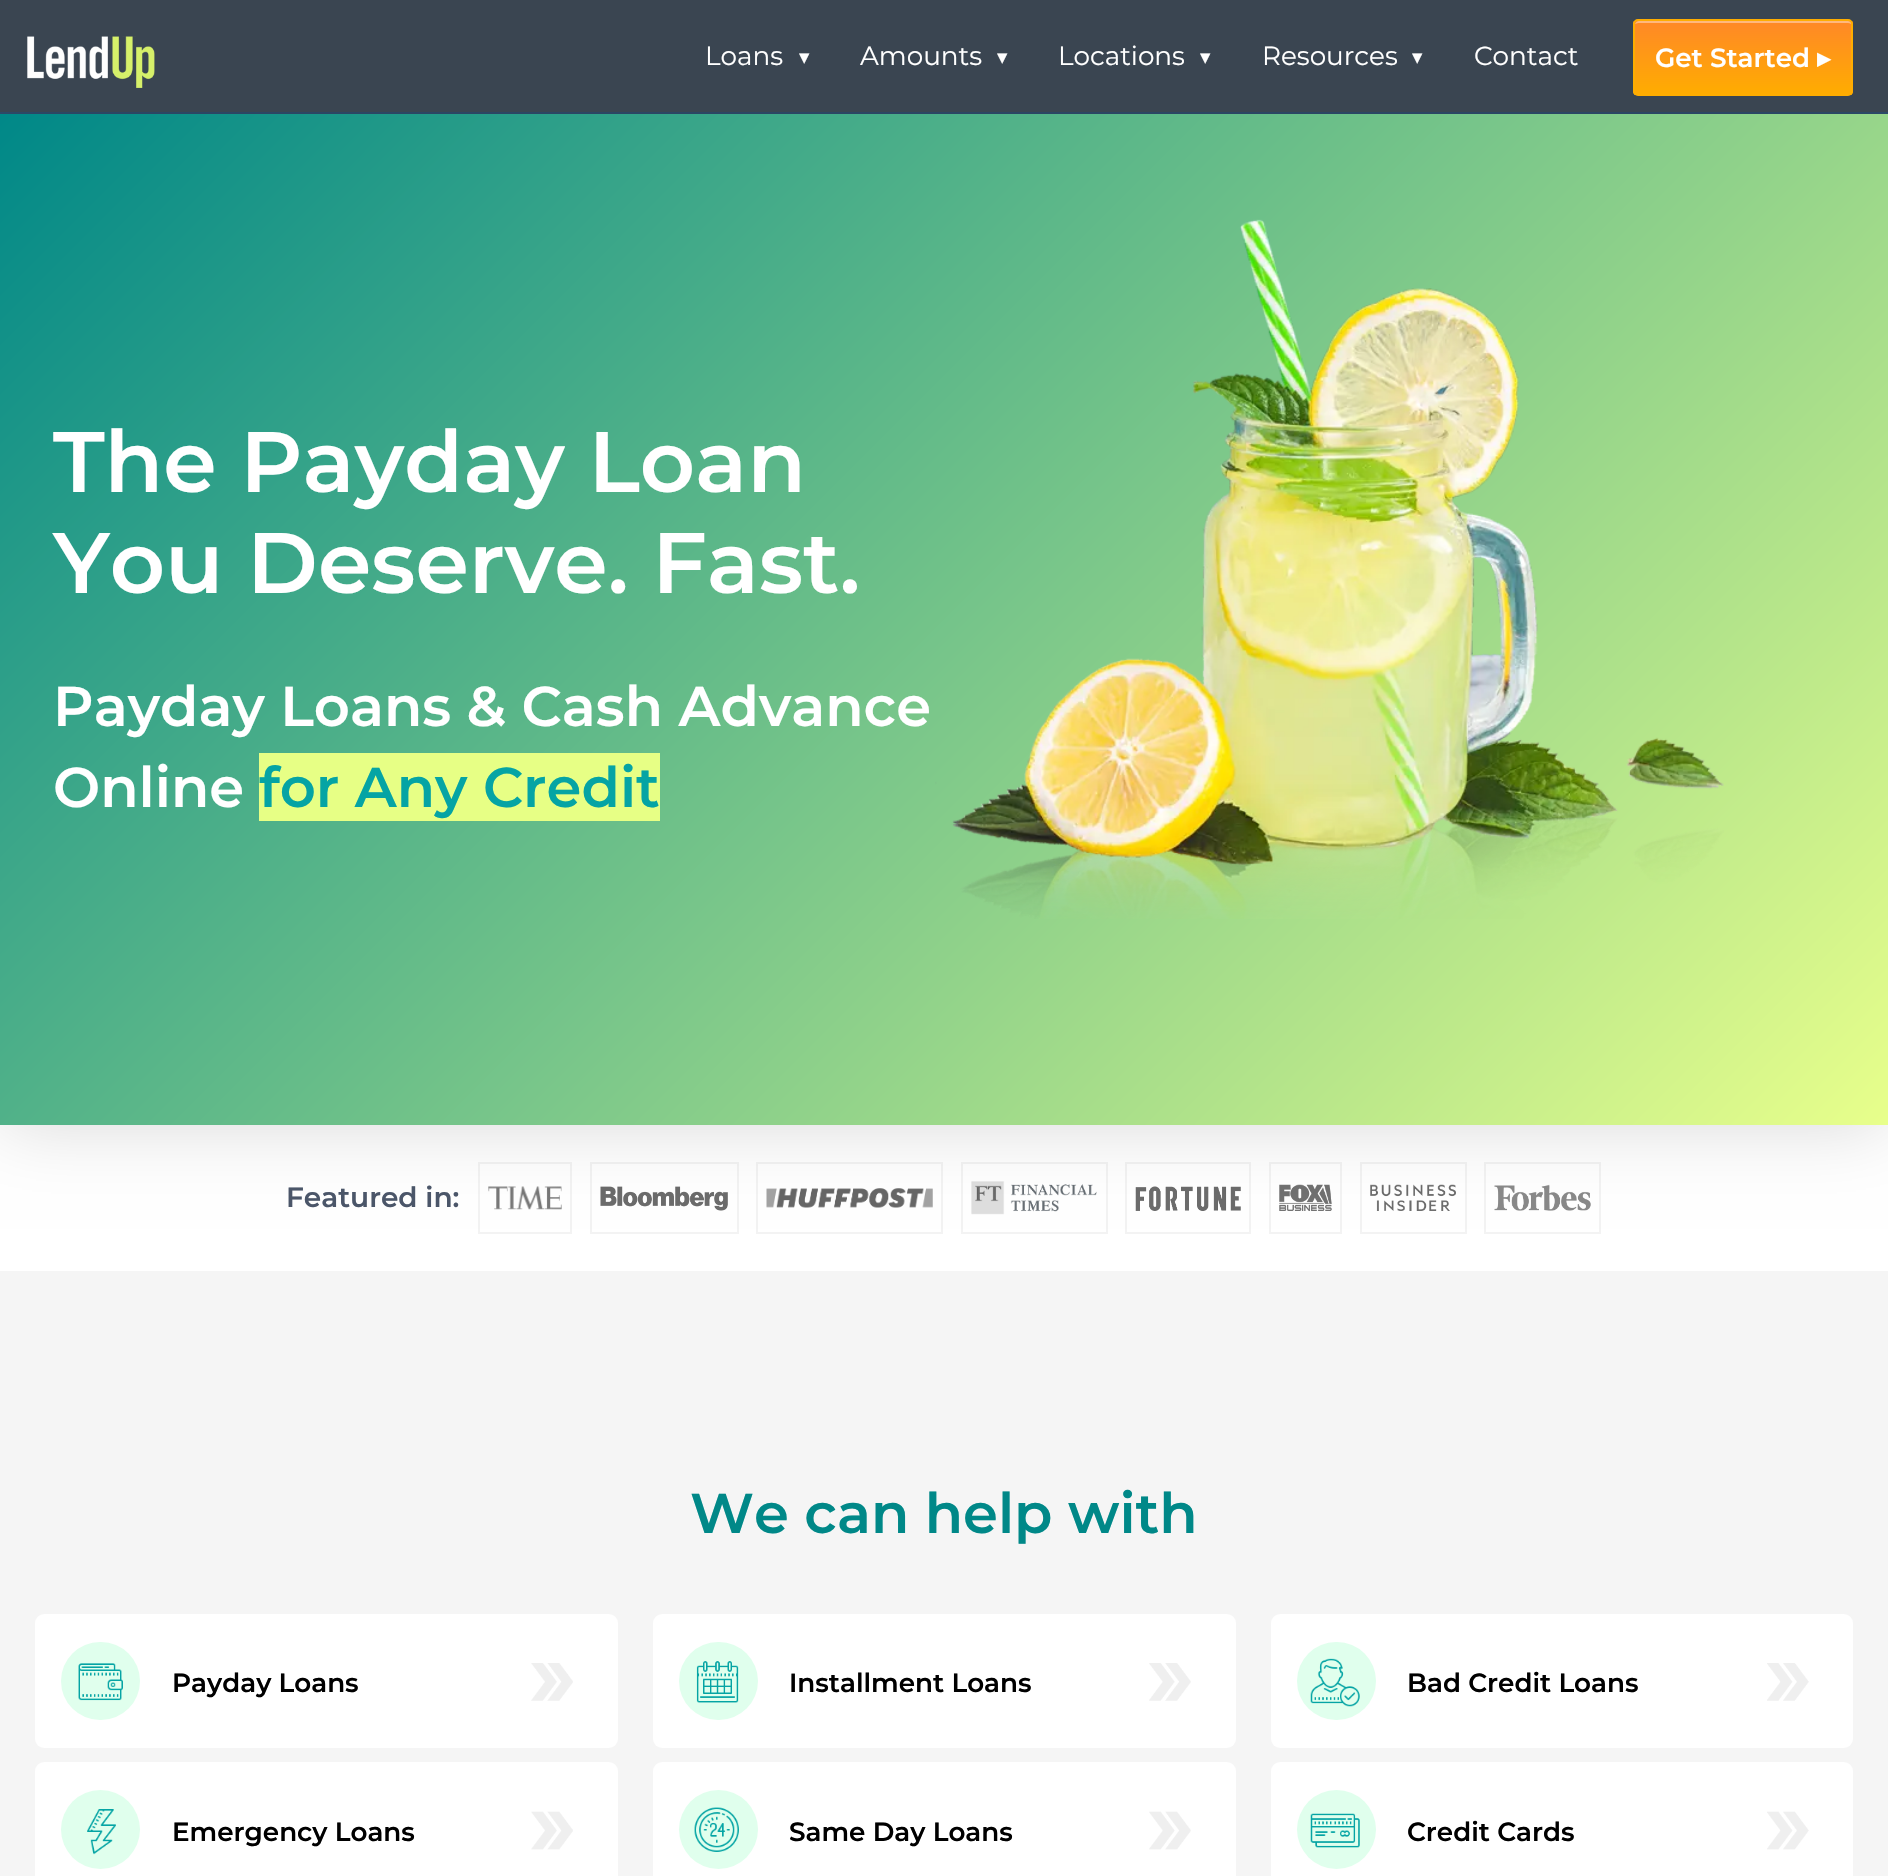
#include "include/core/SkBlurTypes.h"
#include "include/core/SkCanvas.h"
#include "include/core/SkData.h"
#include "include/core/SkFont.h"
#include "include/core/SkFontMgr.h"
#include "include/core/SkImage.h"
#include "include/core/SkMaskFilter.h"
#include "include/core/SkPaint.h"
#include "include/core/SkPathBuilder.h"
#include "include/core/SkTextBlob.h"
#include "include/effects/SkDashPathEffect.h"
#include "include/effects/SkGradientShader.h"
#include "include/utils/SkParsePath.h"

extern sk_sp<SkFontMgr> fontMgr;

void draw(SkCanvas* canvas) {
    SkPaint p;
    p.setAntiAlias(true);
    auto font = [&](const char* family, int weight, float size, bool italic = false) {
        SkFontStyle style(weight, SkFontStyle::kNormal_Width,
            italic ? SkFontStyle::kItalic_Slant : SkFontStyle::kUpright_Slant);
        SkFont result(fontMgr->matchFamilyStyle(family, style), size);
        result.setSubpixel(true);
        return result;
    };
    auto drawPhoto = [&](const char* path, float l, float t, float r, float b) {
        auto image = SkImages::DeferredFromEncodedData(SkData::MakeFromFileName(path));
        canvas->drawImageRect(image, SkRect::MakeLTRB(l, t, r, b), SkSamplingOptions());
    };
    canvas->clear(0xFF2E4C6C);
    p.setColor(0xFFFFFFFF);
    canvas->drawRect(SkRect::MakeLTRB(0, 1125, 1888, 1271), p);
    p.setStyle(SkPaint::kStroke_Style);
    p.setStrokeWidth(2);
    p.setColor(0xFFF3F3F3);
    canvas->drawRect(SkRect::MakeLTRB(479, 1163, 571, 1233), p);
    drawPhoto("media/3.png", 488, 1186, 562, 1210);
    canvas->drawRect(SkRect::MakeLTRB(591, 1163, 738, 1233), p);
    drawPhoto("media/4.png", 600, 1186, 728, 1211);
    canvas->drawRect(SkRect::MakeLTRB(757, 1163, 942, 1233), p);
    drawPhoto("media/5.png", 766, 1188, 933, 1208);
    canvas->drawRect(SkRect::MakeLTRB(962, 1163, 1107, 1233), p);
    drawPhoto("media/6.png", 971, 1181, 1097, 1215);
    canvas->drawRect(SkRect::MakeLTRB(1126, 1163, 1250, 1233), p);
    drawPhoto("media/7.png", 1135, 1186, 1241, 1211);
    canvas->drawRect(SkRect::MakeLTRB(1270, 1163, 1341, 1233), p);
    drawPhoto("media/8.png", 1279, 1184, 1332, 1211);
    canvas->drawRect(SkRect::MakeLTRB(1361, 1163, 1466, 1233), p);
    drawPhoto("media/9.png", 1370, 1184, 1456, 1211);
    canvas->drawRect(SkRect::MakeLTRB(1485, 1163, 1600, 1233), p);
    drawPhoto("media/10.png", 1494, 1184, 1591, 1211);
    p.setStyle(SkPaint::kFill_Style);
    p.setColor(0x26000000);
    p.setMaskFilter(SkMaskFilter::MakeBlur(kNormal_SkBlurStyle, 35));
    canvas->drawRect(SkRect::MakeLTRB(0, 114, 1888, 1125), p);
    p.setMaskFilter(nullptr);
    p.setColor(0xFF3A4551);
    canvas->drawRect(SkRect::MakeLTRB(0, 0, 1888, 112), p);
    drawPhoto("media/1.png", 27, 36, 155, 88);
    auto font1 = font("Montserrat", 400, 26.25f);
    p.setColor(0xFFFFFFFF);
    canvas->drawString("Loans", 705, 65, font1, p);
    auto font2 = font("Montserrat", 400, 24);
    canvas->drawString("▼", 797, 65, font2, p);
    canvas->drawString("Amounts", 860, 65, font1, p);
    canvas->drawString("▼", 995, 65, font2, p);
    canvas->drawString("Locations", 1058, 65, font1, p);
    canvas->drawString("▼", 1198, 65, font2, p);
    canvas->drawString("Resources", 1262, 65, font1, p);
    canvas->drawString("▼", 1410, 65, font2, p);
    canvas->drawString("Contact", 1474, 65, font1, p);
    canvas->save();
    canvas->clipPath(SkPathBuilder().moveTo(1638, 19).lineTo(1848, 19).cubicTo(1851, 19, 1853, 21, 1853, 24).lineTo(1853, 91).cubicTo(1853, 94, 1851, 96, 1848, 96).lineTo(1638, 96).cubicTo(1635, 96, 1633, 94, 1633, 91).lineTo(1633, 24).cubicTo(1633, 21, 1635, 19, 1638, 19).close().detach(), true);
    {
        const SkColor colors[] = {0xFFFF8827, 0xFFFFAD00};
        const float stops[] = {0, 1};
        const SkPoint ends[] = {{1743, 21}, {1743, 95}};
        p.setShader(SkGradientShader::MakeLinear(ends, colors, stops, 2, SkTileMode::kClamp));
        p.setAlpha(255);
    }
    canvas->drawRect(SkRect::MakeLTRB(1633, 21, 1853, 95), p);
    canvas->restore();
    p.setShader(nullptr);
    p.setColor(0xFFFFB87D);
    canvas->drawPath(SkPathBuilder().moveTo(1638, 23).lineTo(1848, 23).cubicTo(1850, 23, 1852, 24, 1852, 26).lineTo(1852, 25).cubicTo(1852, 23, 1850, 21, 1848, 21).lineTo(1639, 21).cubicTo(1637, 21, 1636, 22, 1635, 24).close().detach(), p);
    p.setStyle(SkPaint::kStroke_Style);
    p.setColor(0xFFFFAD00);
    canvas->drawRoundRect(SkRect::MakeLTRB(1634, 20, 1852, 95), 4, 4, p);
    auto font3 = font("Montserrat", 600, 26.25f);
    p.setStyle(SkPaint::kFill_Style);
    p.setColor(0xFFFFFFFF);
    canvas->drawString("Get Started", 1655, 67, font3, p);
    auto font4 = font("DejaVu Sans", 700, 26.25f);
    canvas->drawString("▸", 1817, 67, font4, p);
    {
        const SkColor colors[] = {0xFF008888, 0xFFE8FF8B};
        const float stops[] = {0, 1};
        const SkPoint ends[] = {{219, -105}, {1669, 1344}};
        p.setShader(SkGradientShader::MakeLinear(ends, colors, stops, 2, SkTileMode::kClamp));
        p.setAlpha(255);
    }
    canvas->drawRect(SkRect::MakeLTRB(0, 114, 1888, 1125), p);
    auto font5 = font("Montserrat", 600, 85.75f);
    p.setShader(nullptr);
    p.setColor(0xFFFFFFFF);
    canvas->drawString("The Payday Loan", 53, 492, font5, p);
    canvas->drawString("You Deserve. Fast.", 53, 593, font5, p);
    auto font6 = font("Montserrat", 600, 56);
    canvas->drawString("Payday Loans & Cash Advance", 53, 726, font6, p);
    canvas->drawString("Online", 53, 807, font6, p);
    p.setColor(0xFFE7FF85);
    canvas->drawRect(SkRect::MakeLTRB(259, 753, 660, 821), p);
    p.setColor(0xFF05A4A4);
    canvas->drawString("for Any Credit", 259, 807, font6, p);
    drawPhoto("media/2.png", 935, 219, 1724, 919);
    auto font7 = font("Montserrat", 600, 28);
    p.setColor(0xFF4B5669);
    canvas->drawString("Featured in:", 286, 1207, font7, p);
    p.setColor(0xFFF5F5F5);
    canvas->drawRect(SkRect::MakeLTRB(0, 1271, 1888, 1876), p);
    p.setColor(0xFF008888);
    canvas->drawString("We can help with", 690, 1533, font6, p);
    p.setColor(0xFFFFFFFF);
    canvas->drawRoundRect(SkRect::MakeLTRB(35, 1614, 618, 1748), 9, 9, p);
    p.setColor(0xFFE0FFED);
    canvas->drawRoundRect(SkRect::MakeLTRB(61, 1642, 140, 1720), 39, 39, p);
    drawPhoto("media/11.png", 78, 1663, 123, 1701);
    p.setColor(0xFF000000);
    canvas->drawString("Payday Loans", 172, 1692, font3, p);
    drawPhoto("media/12.png", 531, 1663, 573, 1701);
    p.setColor(0xFFFFFFFF);
    canvas->drawRoundRect(SkRect::MakeLTRB(653, 1614, 1236, 1748), 9, 9, p);
    p.setColor(0xFFE0FFED);
    canvas->drawRoundRect(SkRect::MakeLTRB(679, 1642, 758, 1720), 39, 39, p);
    drawPhoto("media/13.png", 696, 1661, 739, 1703);
    p.setColor(0xFF000000);
    canvas->drawString("Installment Loans", 789, 1692, font3, p);
    drawPhoto("media/14.png", 1149, 1663, 1191, 1701);
    p.setColor(0xFFFFFFFF);
    canvas->drawRoundRect(SkRect::MakeLTRB(1271, 1614, 1853, 1748), 9, 9, p);
    p.setColor(0xFFE0FFED);
    canvas->drawRoundRect(SkRect::MakeLTRB(1297, 1642, 1376, 1720), 39, 39, p);
    drawPhoto("media/15.png", 1310, 1658, 1360, 1707);
    p.setColor(0xFF000000);
    canvas->drawString("Bad Credit Loans", 1407, 1692, font3, p);
    drawPhoto("media/16.png", 1767, 1663, 1809, 1701);
    p.setColor(0xFFFFFFFF);
    canvas->drawRoundRect(SkRect::MakeLTRB(35, 1762, 618, 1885), 9, 9, p);
    p.setColor(0xFFE0FFED);
    canvas->drawCircle(100.5f, 1829.5f, 39.5f, p);
    drawPhoto("media/17.png", 87, 1809, 116, 1855);
    p.setColor(0xFF000000);
    canvas->drawString("Emergency Loans", 172, 1841, font3, p);
    drawPhoto("media/18.png", 531, 1811, 573, 1850);
    p.setColor(0xFFFFFFFF);
    canvas->drawRoundRect(SkRect::MakeLTRB(653, 1762, 1236, 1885), 9, 9, p);
    p.setColor(0xFFE0FFED);
    canvas->drawCircle(718.5f, 1829.5f, 39.5f, p);
    drawPhoto("media/19.png", 694, 1807, 739, 1852);
    p.setColor(0xFF000000);
    canvas->drawString("Same Day Loans", 789, 1841, font3, p);
    drawPhoto("media/20.png", 1149, 1811, 1191, 1850);
    p.setColor(0xFFFFFFFF);
    canvas->drawRoundRect(SkRect::MakeLTRB(1271, 1762, 1853, 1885), 9, 9, p);
    p.setColor(0xFFE0FFED);
    canvas->drawCircle(1336.5f, 1829.5f, 39.5f, p);
    drawPhoto("media/21.png", 1310, 1813, 1360, 1848);
    p.setColor(0xFF000000);
    canvas->drawString("Credit Cards", 1407, 1841, font3, p);
    drawPhoto("media/22.png", 1767, 1811, 1809, 1850);
}
